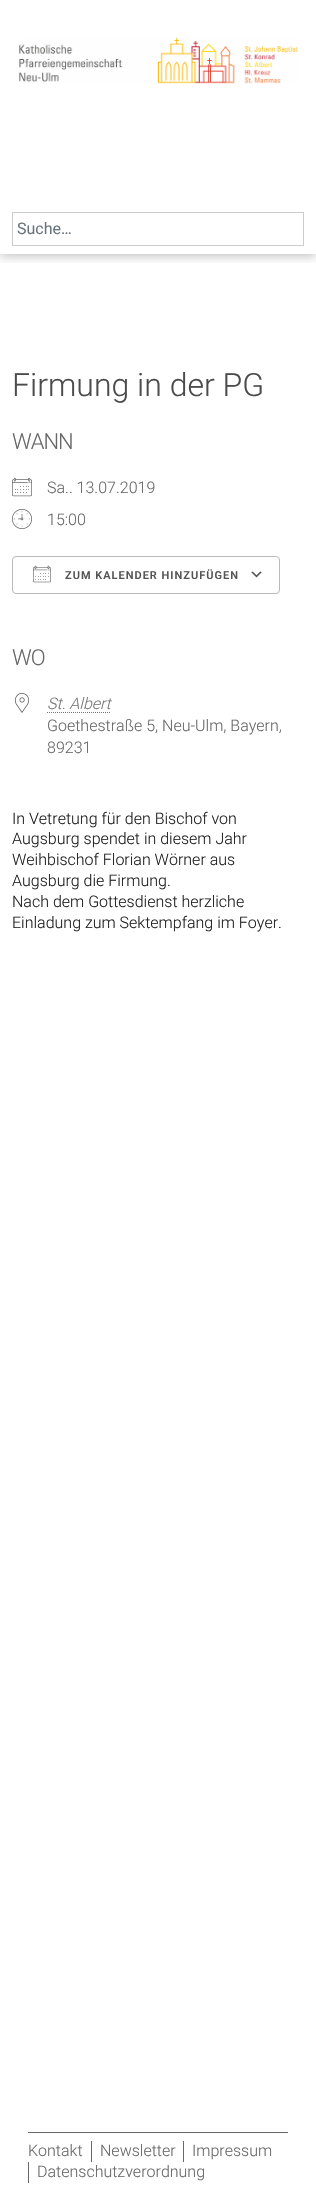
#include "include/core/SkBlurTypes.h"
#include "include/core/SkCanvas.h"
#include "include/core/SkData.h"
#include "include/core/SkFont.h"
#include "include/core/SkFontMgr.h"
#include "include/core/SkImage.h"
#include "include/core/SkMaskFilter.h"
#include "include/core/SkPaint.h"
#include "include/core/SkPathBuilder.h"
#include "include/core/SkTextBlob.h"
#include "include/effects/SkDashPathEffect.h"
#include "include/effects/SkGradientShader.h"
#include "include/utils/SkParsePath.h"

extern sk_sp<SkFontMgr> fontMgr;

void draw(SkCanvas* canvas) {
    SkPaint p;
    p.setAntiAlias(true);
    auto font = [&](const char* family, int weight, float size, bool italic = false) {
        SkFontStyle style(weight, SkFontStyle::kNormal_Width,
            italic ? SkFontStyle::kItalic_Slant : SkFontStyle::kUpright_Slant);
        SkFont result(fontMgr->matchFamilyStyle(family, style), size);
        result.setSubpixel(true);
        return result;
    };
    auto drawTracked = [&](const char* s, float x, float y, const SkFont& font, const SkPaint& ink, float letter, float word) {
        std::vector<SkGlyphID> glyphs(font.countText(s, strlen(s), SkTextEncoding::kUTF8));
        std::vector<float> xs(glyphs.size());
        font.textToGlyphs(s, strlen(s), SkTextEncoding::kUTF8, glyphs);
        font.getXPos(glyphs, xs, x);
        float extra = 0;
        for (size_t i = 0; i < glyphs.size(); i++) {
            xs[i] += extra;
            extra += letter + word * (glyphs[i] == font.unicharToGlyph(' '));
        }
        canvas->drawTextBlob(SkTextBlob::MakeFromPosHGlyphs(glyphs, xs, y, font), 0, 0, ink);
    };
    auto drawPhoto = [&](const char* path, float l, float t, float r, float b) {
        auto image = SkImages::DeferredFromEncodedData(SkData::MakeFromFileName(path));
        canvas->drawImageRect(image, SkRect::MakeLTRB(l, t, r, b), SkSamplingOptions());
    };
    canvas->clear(0xFFFFFFFF);
    canvas->save();
    canvas->clipRect(SkRect::MakeLTRB(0, 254, 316, 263));
    p.setColor(0x40000000);
    p.setMaskFilter(SkMaskFilter::MakeBlur(kNormal_SkBlurStyle, 5));
    canvas->drawRect(SkRect::MakeLTRB(0, 2, 316, 256), p);
    p.setMaskFilter(nullptr);
    canvas->restore();
    drawPhoto("media/1.png", 19, 38, 298, 84);
    p.setStyle(SkPaint::kStroke_Style);
    p.setStrokeWidth(1);
    p.setColor(0xFFCCCCCC);
    canvas->drawRect(SkRect::MakeLTRB(12.5f, 212.5f, 303.5f, 245.5f), p);
    auto font1 = font("Roboto", 400, 16);
    p.setStyle(SkPaint::kFill_Style);
    p.setColor(0xFF6C757D);
    canvas->drawString("Suche…", 17, 234, font1, p);
    auto font2 = font("Roboto", 300, 32);
    p.setColor(0xFF4B4B4B);
    canvas->drawString("Firmung in der PG", 12, 396, font2, p);
    auto font3 = font("Roboto", 300, 22);
    p.setColor(0xFF686868);
    drawTracked("WANN", 12, 449, font3, p, -1, 0);
    drawPhoto("media/2.png", 12, 477, 32, 497);
    auto font4 = font("Roboto", 300, 16);
    canvas->drawString("Sa.. 13.07.2019", 47, 493, font4, p);
    drawPhoto("media/3.png", 12, 509, 32, 529);
    canvas->drawString("15:00", 47, 525, font4, p);
    drawPhoto("media/4.png", 251, 571, 262, 578);
    p.setStyle(SkPaint::kStroke_Style);
    p.setColor(0xFFBABABA);
    canvas->drawRoundRect(SkRect::MakeLTRB(12.5f, 556.5f, 279.5f, 593.5f), 3.5f, 3.5f, p);
    drawPhoto("media/5.png", 33, 565, 51, 583);
    auto font5 = font("Roboto", 600, 11);
    p.setStyle(SkPaint::kFill_Style);
    p.setColor(0xFF545454);
    drawTracked("ZUM KALENDER HINZUFÜGEN", 65, 579, font5, p, 1, 0);
    p.setColor(0xFF686868);
    drawTracked("WO", 12, 665, font3, p, -1, 0);
    drawPhoto("media/6.png", 15, 693, 29, 713);
    auto font6 = font("Roboto", 300, 16, true);
    p.setColor(0xFF787878);
    canvas->drawString("St. Albert", 47, 709, font6, p);
    p.setStyle(SkPaint::kStroke_Style);
    p.setPathEffect(SkDashPathEffect::Make({{1, 1}}, 0));
    canvas->drawPath(SkPathBuilder().moveTo(47, 712.5f).lineTo(110.5f, 712.5f).detach(), p);
    p.setPathEffect(nullptr);
    p.setStyle(SkPaint::kFill_Style);
    p.setColor(0xFF686868);
    canvas->drawString("Goethestraße 5, Neu-Ulm, Bayern,", 47, 731, font4, p);
    canvas->drawString("89231", 47, 753, font4, p);
    p.setColor(0xFF212121);
    {
        const struct { const char* s; float x, y; } items[] = {
            {"In Vetretung für den Bischof von", 12, 824},
            {"Augsburg spendet in diesem Jahr", 12, 844},
            {"Weihbischof Florian Wörner aus", 12, 865},
            {"Augsburg die Firmung.", 12, 886},
            {"Nach dem Gottesdienst herzliche", 12, 907},
            {"Einladung zum Sektempfang im Foyer.", 12, 928},
        };
        for (auto [s, x, y] : items) {
            canvas->drawString(s, x, y, font4, p);
        }
    }
    p.setColor(0xFF686868);
    canvas->drawRect(SkRect::MakeLTRB(28, 2132, 288, 2133), p);
    canvas->drawString("Kontakt", 28, 2156, font4, p);
    canvas->drawRect(SkRect::MakeLTRB(91, 2141, 92, 2162), p);
    canvas->drawString("Newsletter", 100, 2156, font4, p);
    canvas->drawRect(SkRect::MakeLTRB(183, 2141, 184, 2162), p);
    canvas->drawString("Impressum", 192, 2156, font4, p);
    canvas->drawRect(SkRect::MakeLTRB(28, 2162, 29, 2183), p);
    canvas->drawString("Datenschutzverordnung", 37, 2177, font4, p);
}
